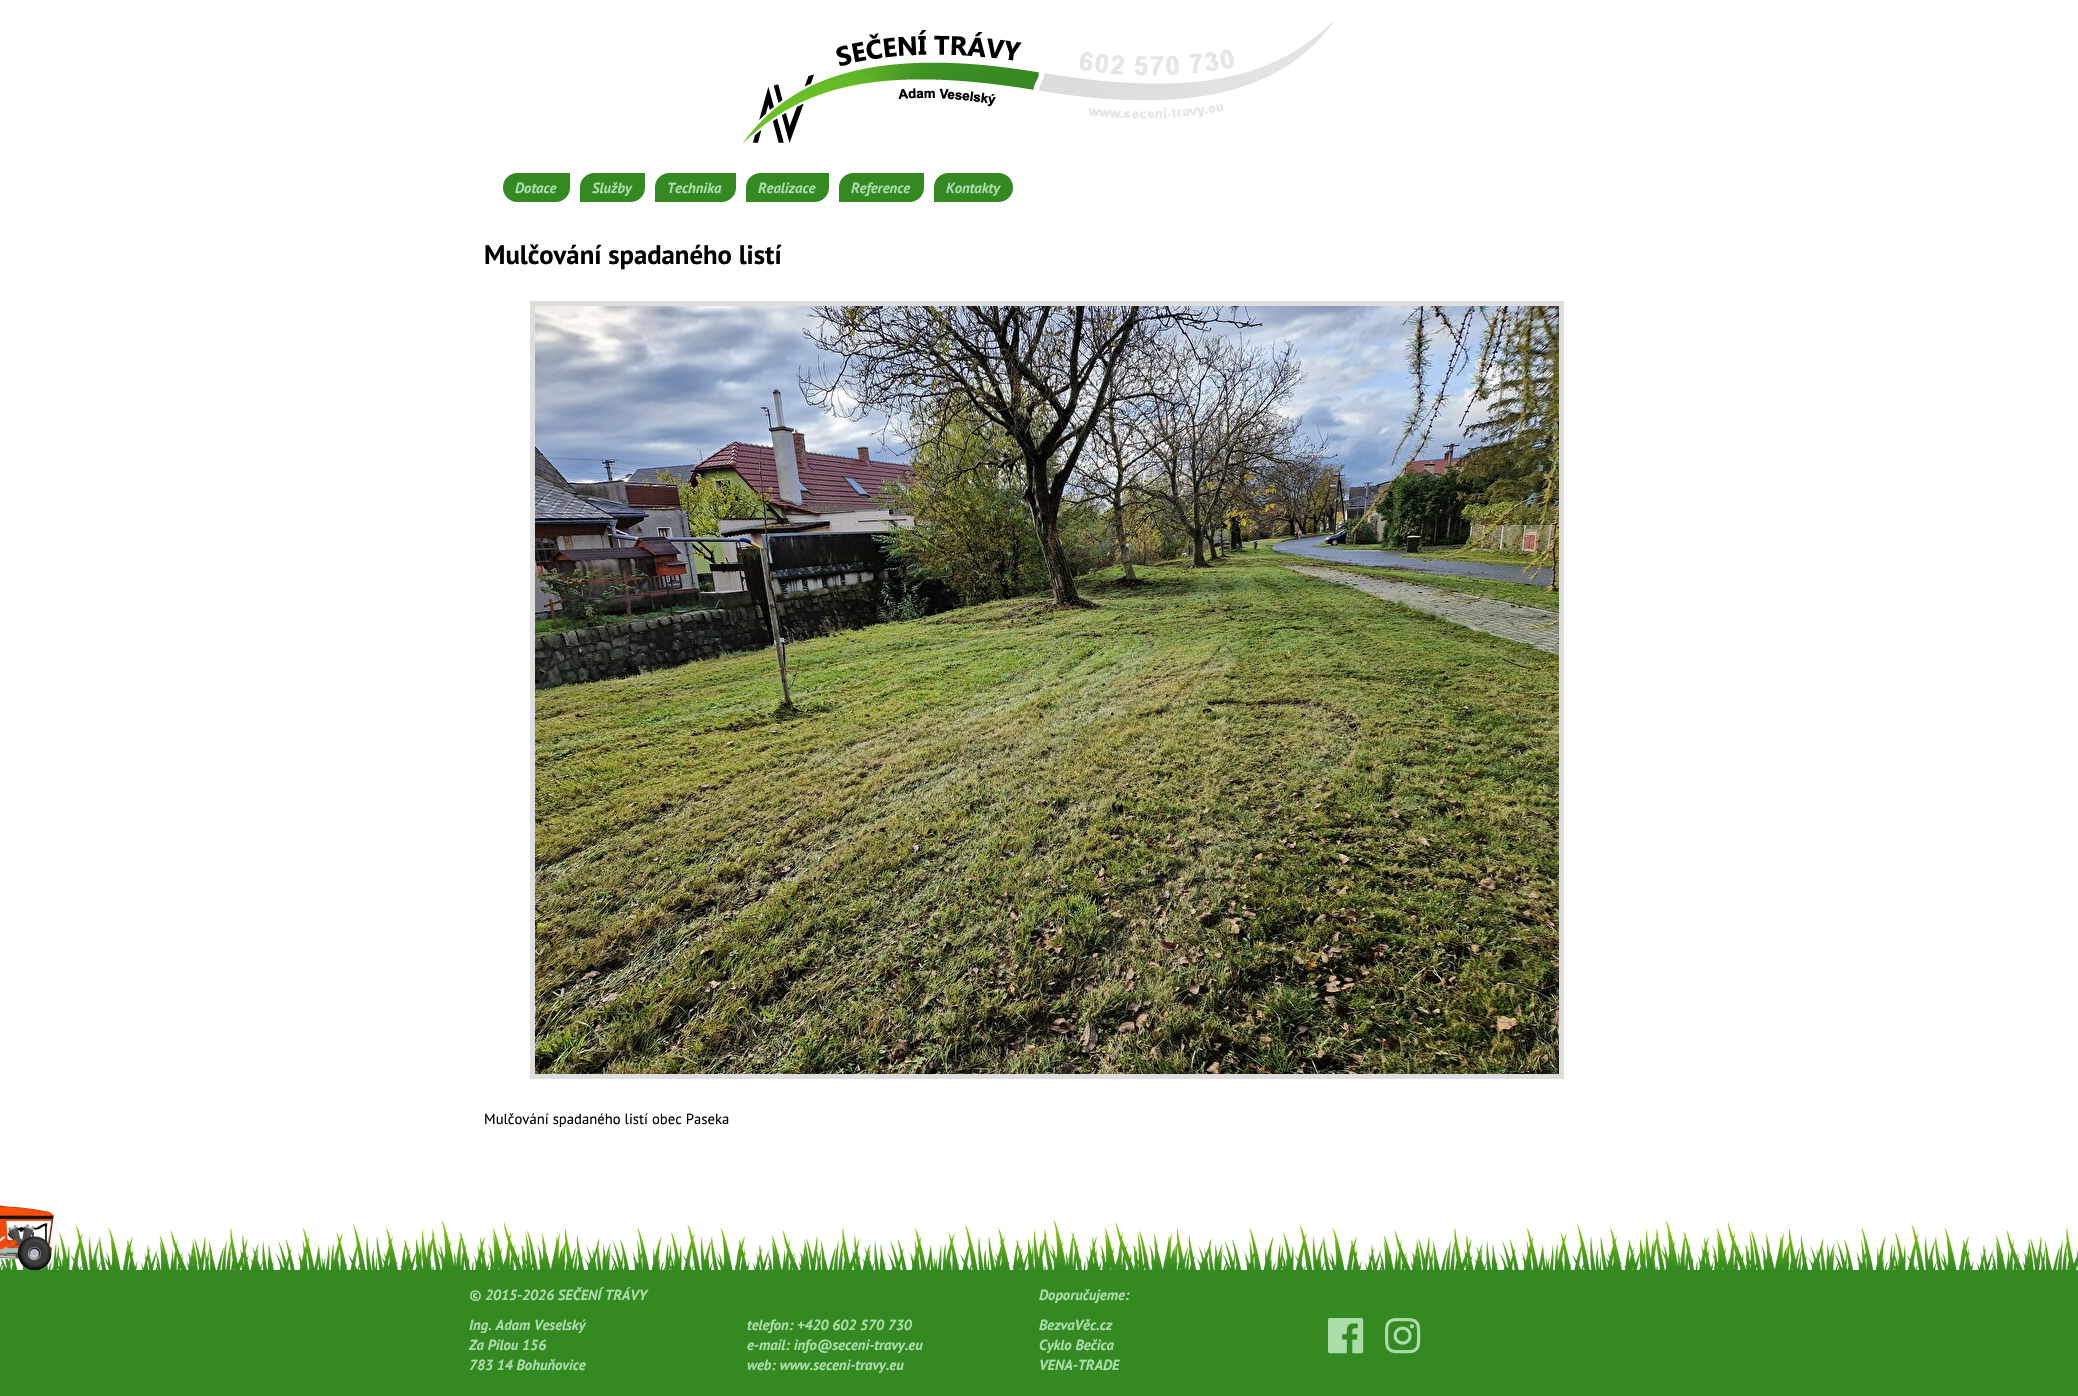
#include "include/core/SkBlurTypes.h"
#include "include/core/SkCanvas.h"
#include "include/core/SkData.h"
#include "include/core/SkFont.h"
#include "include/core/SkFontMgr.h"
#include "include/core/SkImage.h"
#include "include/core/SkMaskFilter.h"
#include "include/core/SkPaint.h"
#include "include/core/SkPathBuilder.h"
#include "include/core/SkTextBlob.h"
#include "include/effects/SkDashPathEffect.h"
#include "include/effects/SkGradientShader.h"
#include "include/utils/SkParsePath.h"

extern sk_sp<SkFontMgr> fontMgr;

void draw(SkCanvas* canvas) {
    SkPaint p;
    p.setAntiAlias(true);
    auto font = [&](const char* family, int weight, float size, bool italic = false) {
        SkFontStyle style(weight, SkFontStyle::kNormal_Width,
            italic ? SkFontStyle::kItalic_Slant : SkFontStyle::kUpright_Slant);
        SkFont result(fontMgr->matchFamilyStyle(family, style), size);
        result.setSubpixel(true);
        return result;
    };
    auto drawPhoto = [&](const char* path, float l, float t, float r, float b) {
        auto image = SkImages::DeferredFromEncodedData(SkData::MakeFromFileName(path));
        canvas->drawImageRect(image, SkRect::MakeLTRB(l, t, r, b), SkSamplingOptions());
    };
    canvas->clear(0xFF358922);
    p.setColor(0xFFFFFFFF);
    canvas->drawRect(SkRect::MakeLTRB(0, 0, 2078, 1270), p);
    drawPhoto("media/1.png", 743, 30, 1039, 143);
    drawPhoto("media/2.png", 1039, 20, 1335, 119);
    p.setColor(0xFF358922);
    canvas->drawPath(SkPathBuilder().moveTo(517, 173).lineTo(570, 173).lineTo(570, 188).cubicTo(570, 195.5f, 563.5f, 202, 556, 202).lineTo(517, 202).cubicTo(509.5f, 202, 503, 195.5f, 503, 188).lineTo(503, 187).cubicTo(503, 179.5f, 509.5f, 173, 517, 173).close().detach(), p);
    auto font1 = font("PT Sans", 700, 14.7f, true);
    p.setColor(0xFFAADDAA);
    canvas->drawString("Dotace", 515, 193, font1, p);
    p.setColor(0xFF358922);
    canvas->drawPath(SkPathBuilder().moveTo(594, 173).lineTo(645, 173).lineTo(645, 188).cubicTo(645, 195.5f, 638.5f, 202, 631, 202).lineTo(580, 202).lineTo(580, 187).cubicTo(580, 179.5f, 586.5f, 173, 594, 173).close().detach(), p);
    p.setColor(0xFFAADDAA);
    canvas->drawString("Služby", 592, 193, font1, p);
    p.setColor(0xFF358922);
    canvas->drawPath(SkPathBuilder().moveTo(669, 173).lineTo(736, 173).lineTo(736, 188).cubicTo(736, 195.5f, 729.5f, 202, 722, 202).lineTo(655, 202).lineTo(655, 187).cubicTo(655, 179.5f, 661.5f, 173, 669, 173).close().detach(), p);
    p.setColor(0xFFAADDAA);
    canvas->drawString("Technika", 667, 193, font1, p);
    p.setColor(0xFF358922);
    canvas->drawPath(SkPathBuilder().moveTo(760, 173).lineTo(829, 173).lineTo(829, 188).cubicTo(829, 195.5f, 822.5f, 202, 815, 202).lineTo(746, 202).lineTo(746, 187).cubicTo(746, 179.5f, 752.5f, 173, 760, 173).close().detach(), p);
    p.setColor(0xFFAADDAA);
    canvas->drawString("Realizace", 758, 193, font1, p);
    p.setColor(0xFF358922);
    canvas->drawPath(SkPathBuilder().moveTo(853, 173).lineTo(924, 173).lineTo(924, 188).cubicTo(924, 195.5f, 917.5f, 202, 910, 202).lineTo(839, 202).lineTo(839, 187).cubicTo(839, 179.5f, 845.5f, 173, 853, 173).close().detach(), p);
    p.setColor(0xFFAADDAA);
    canvas->drawString("Reference", 851, 193, font1, p);
    p.setColor(0xFF358922);
    canvas->drawPath(SkPathBuilder().moveTo(948, 173).lineTo(999, 173).cubicTo(1006.5f, 173, 1013, 179.5f, 1013, 187).lineTo(1013, 188).cubicTo(1013, 195.5f, 1006.5f, 202, 999, 202).lineTo(934, 202).lineTo(934, 187).cubicTo(934, 179.5f, 940.5f, 173, 948, 173).close().detach(), p);
    p.setColor(0xFFAADDAA);
    canvas->drawString("Kontakty", 946, 193, font1, p);
    auto font2 = font("PT Sans", 700, 26.75f);
    p.setColor(0xFF000000);
    canvas->drawString("Mulčování spadaného listí", 484, 264, font2, p);
    p.setStyle(SkPaint::kStroke_Style);
    p.setStrokeWidth(5);
    p.setColor(0xFFDDDDDD);
    canvas->drawRect(SkRect::MakeLTRB(532.5f, 303.5f, 1561.5f, 1076.5f), p);
    drawPhoto("media/3.png", 535, 306, 1559, 1074);
    auto font3 = font("PT Sans", 400, 14.7f);
    p.setStyle(SkPaint::kFill_Style);
    p.setColor(0xFF000000);
    canvas->drawString("Mulčování spadaného listí obec Paseka", 484, 1124, font3, p);
    drawPhoto("media/4.png", 0, 1220, 2078, 1270);
    drawPhoto("media/5.png", 0, 1205, 54, 1270);
    p.setColor(0xFFAADDAA);
    {
        const struct { const char* s; float x, y; } items[] = {
            {"© 2015-2026 SEČENÍ TRÁVY", 469, 1300},
            {"Ing. Adam Veselský", 469, 1330},
            {"Za Pilou 156", 469, 1350},
            {"783 14 Bohuňovice", 469, 1370},
            {"telefon: +420 602 570 730", 747, 1330},
            {"e-mail: info@seceni-travy.eu", 747, 1350},
            {"web: www.seceni-travy.eu", 747, 1370},
            {"Doporučujeme:", 1039, 1300},
            {"BezvaVěc.cz", 1039, 1330},
            {"Cyklo Bečica", 1039, 1350},
            {"VENA-TRADE", 1039, 1370},
        };
        for (auto [s, x, y] : items) {
            canvas->drawString(s, x, y, font1, p);
        }
    }
    drawPhoto("media/6.png", 1328, 1318, 1364, 1354);
    drawPhoto("media/7.png", 1385, 1318, 1421, 1354);
}
